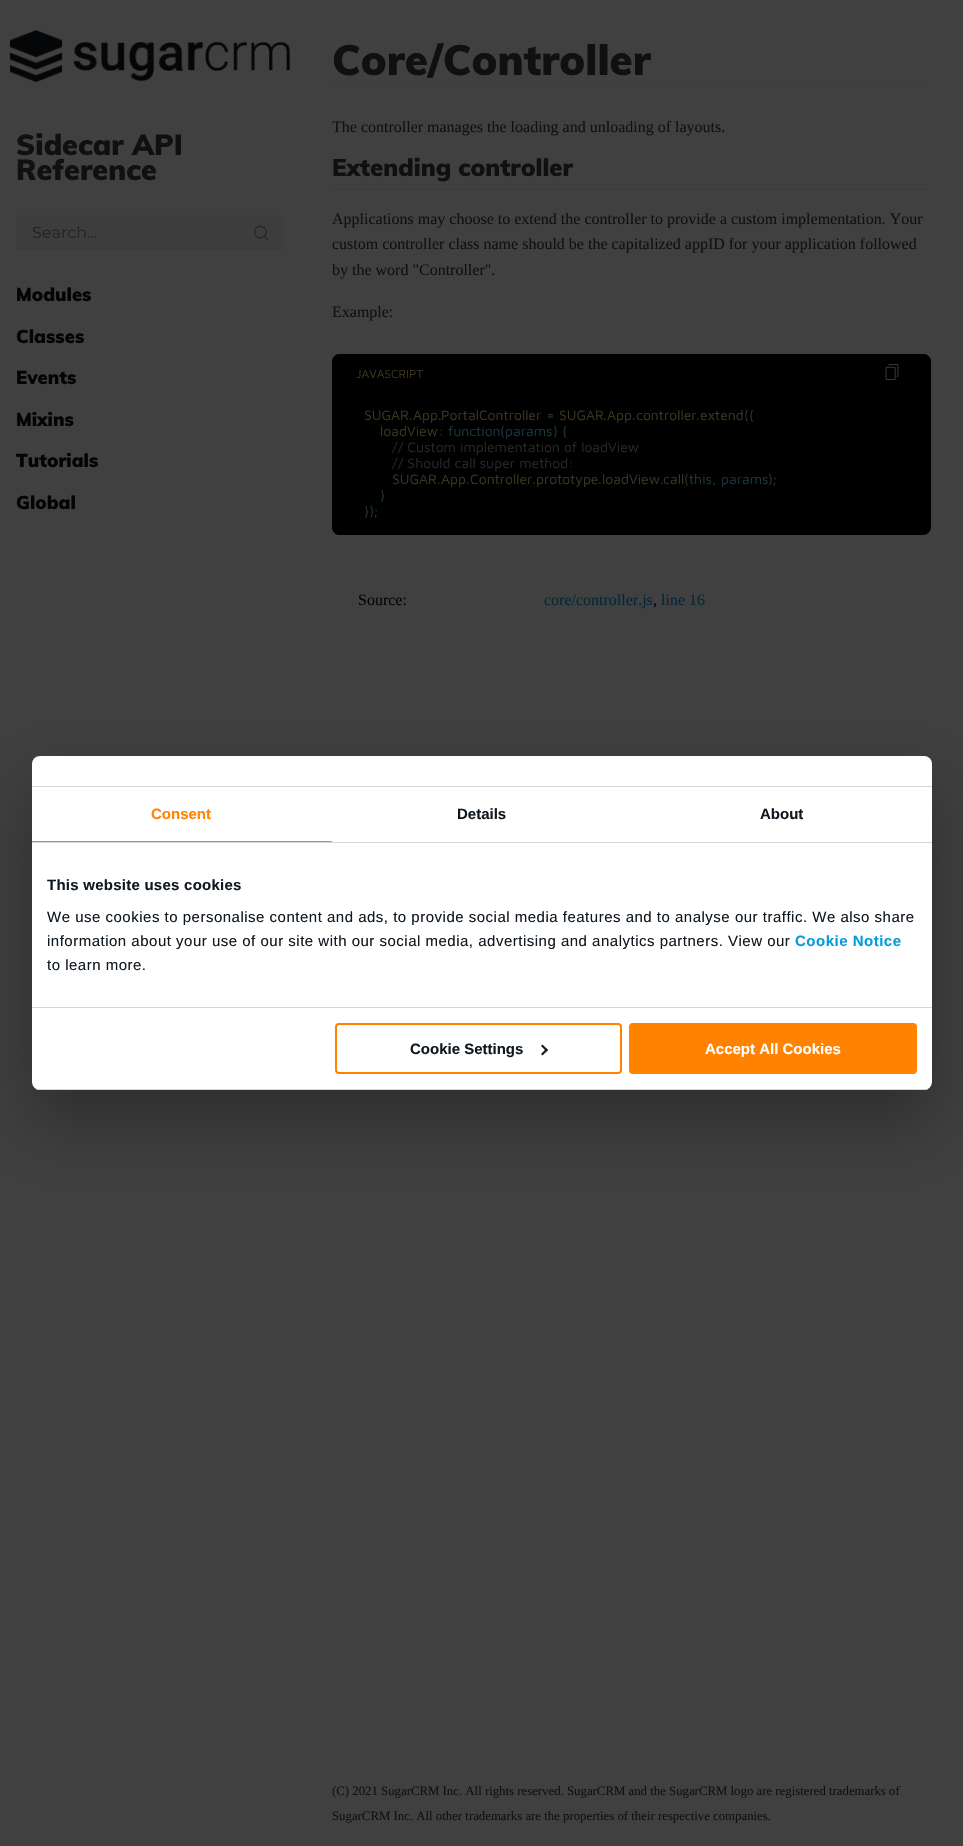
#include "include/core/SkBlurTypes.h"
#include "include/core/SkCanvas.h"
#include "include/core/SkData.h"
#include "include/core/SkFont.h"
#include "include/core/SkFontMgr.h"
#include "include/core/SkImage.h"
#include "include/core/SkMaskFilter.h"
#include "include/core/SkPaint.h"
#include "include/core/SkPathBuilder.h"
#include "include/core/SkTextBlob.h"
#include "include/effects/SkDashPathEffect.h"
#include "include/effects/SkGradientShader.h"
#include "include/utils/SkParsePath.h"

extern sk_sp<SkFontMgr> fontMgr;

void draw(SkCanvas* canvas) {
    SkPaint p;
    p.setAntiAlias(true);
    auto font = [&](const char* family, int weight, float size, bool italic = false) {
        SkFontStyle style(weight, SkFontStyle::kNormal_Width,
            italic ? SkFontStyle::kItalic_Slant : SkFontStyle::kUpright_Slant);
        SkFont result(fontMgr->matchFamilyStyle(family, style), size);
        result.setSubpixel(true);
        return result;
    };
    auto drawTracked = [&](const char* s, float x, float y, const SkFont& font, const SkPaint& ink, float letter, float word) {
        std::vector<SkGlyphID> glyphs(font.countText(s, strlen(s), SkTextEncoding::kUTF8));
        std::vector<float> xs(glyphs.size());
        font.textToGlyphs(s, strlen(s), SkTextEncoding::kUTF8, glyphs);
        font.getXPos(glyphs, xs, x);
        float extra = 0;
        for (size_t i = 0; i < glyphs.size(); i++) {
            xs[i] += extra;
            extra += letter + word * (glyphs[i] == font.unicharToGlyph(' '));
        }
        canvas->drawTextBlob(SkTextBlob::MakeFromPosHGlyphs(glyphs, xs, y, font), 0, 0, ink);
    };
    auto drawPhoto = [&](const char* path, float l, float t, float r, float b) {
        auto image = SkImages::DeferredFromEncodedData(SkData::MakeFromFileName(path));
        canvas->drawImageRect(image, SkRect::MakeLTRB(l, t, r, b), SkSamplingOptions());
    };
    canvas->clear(0xFF404040);
    drawPhoto("media/1.png", 10, 30, 290, 82);
    auto font1 = font("Muli", 900, 28.75f);
    p.setColor(0xFF100F11);
    canvas->drawString("Sidecar API", 16, 155, font1, p);
    canvas->drawString("Reference", 16, 180, font1, p);
    p.setColor(0xFF3D3D3D);
    canvas->drawRect(SkRect::MakeLTRB(16, 215, 284, 250), p);
    auto font2 = font("Montserrat", 400, 16);
    p.setColor(0xFF222222);
    canvas->drawString("Search...", 32, 238, font2, p);
    drawPhoto("media/2.png", 254, 225, 268, 241);
    auto font3 = font("Muli", 900, 18.5f);
    p.setColor(0xFF040404);
    {
        const struct { const char* s; float x, y; } items[] = {
            {"Modules", 16, 301},
            {"Classes", 16, 343},
            {"Events", 16, 384},
            {"Mixins", 16, 426},
            {"Tutorials", 16, 467},
            {"Global", 16, 509},
        };
        for (auto [s, x, y] : items) {
            canvas->drawString(s, x, y, font3, p);
        }
    }
    p.setColor(0xFF3C3C3C);
    canvas->drawRect(SkRect::MakeLTRB(332, 81, 931, 82), p);
    auto font4 = font("Muli", 900, 42);
    p.setColor(0xFF100F11);
    canvas->drawString("Core/Controller", 332, 75, font4, p);
    auto font5 = font("Liberation Serif", 400, 16);
    canvas->drawString("The controller manages the loading and unloading of layouts.", 332, 132, font5, p);
    p.setColor(0xFF3C3C3C);
    canvas->drawRect(SkRect::MakeLTRB(332, 189, 931, 190), p);
    auto font6 = font("Muli", 900, 24);
    p.setColor(0xFF100F11);
    canvas->drawString("Extending controller", 332, 176, font6, p);
    {
        const struct { const char* s; float x, y; } items[] = {
            {"Applications may choose to extend the controller to provide a custom implementation. Your", 332, 224},
            {"custom controller class name should be the capitalized appID for your application followed", 332, 249},
            {"by the word \"Controller\".", 332, 275},
            {"Example:", 332, 317},
        };
        for (auto [s, x, y] : items) {
            canvas->drawString(s, x, y, font5, p);
        }
    }
    p.setColor(0xFF000000);
    canvas->drawRoundRect(SkRect::MakeLTRB(332, 354, 931, 535), 8, 8, p);
    canvas->drawPath(SkPathBuilder().moveTo(337, 391).lineTo(804, 391).cubicTo(807, 391, 809, 393, 809, 396).lineTo(809, 530).cubicTo(809, 533, 807, 535, 804, 535).lineTo(340, 535).cubicTo(335.5f, 535, 332, 531.5f, 332, 527).lineTo(332, 396).cubicTo(332, 393, 334, 391, 337, 391).close().detach(), p);
    canvas->drawPath(SkPathBuilder().moveTo(340, 354).lineTo(923, 354).cubicTo(927.5f, 354, 931, 357.5f, 931, 362).lineTo(931, 394).lineTo(332, 394).lineTo(332, 362).cubicTo(332, 357.5f, 335.5f, 354, 340, 354).close().detach(), p);
    auto font7 = font("Maven Pro", 400, 12);
    p.setColor(0xFF3D361F);
    canvas->drawString("JAVASCRIPT", 356, 378, font7, p);
    drawPhoto("media/3.png", 885, 364, 899, 380);
    auto font8 = font("Maven Pro", 400, 14);
    {
        const struct { const char* s; float x, y; } items[] = {
            {"SUGAR", 364, 420},
            {"App", 413, 420},
            {"PortalController", 441, 420},
        };
        for (auto [s, x, y] : items) {
            canvas->drawString(s, x, y, font8, p);
        }
    }
    p.setColor(0xFF1D3834);
    canvas->drawString("=", 546, 420, font8, p);
    p.setColor(0xFF3D361F);
    {
        const struct { const char* s; float x, y; } items[] = {
            {"SUGAR", 559, 420},
            {"App", 607, 420},
            {"controller", 636, 420},
            {"extend", 700, 420},
        };
        for (auto [s, x, y] : items) {
            canvas->drawString(s, x, y, font8, p);
        }
    }
    p.setColor(0xFF1D3834);
    {
        const struct { const char* s; float x, y; } items[] = {
            {"({", 744, 420},
            {".", 409, 420},
            {".", 438, 420},
            {".", 603, 420},
            {".", 632, 420},
            {".", 696, 420},
        };
        for (auto [s, x, y] : items) {
            canvas->drawString(s, x, y, font8, p);
        }
    }
    p.setColor(0xFF3D361F);
    canvas->drawString("loadView", 380, 436, font8, p);
    p.setColor(0xFF1D3834);
    canvas->drawString(":", 438, 436, font8, p);
    p.setColor(0xFF183840);
    canvas->drawString("function", 448, 436, font8, p);
    p.setColor(0xFF1D3834);
    canvas->drawString("(", 500, 436, font8, p);
    p.setColor(0xFF183840);
    canvas->drawString("params", 505, 436, font8, p);
    p.setColor(0xFF1D3834);
    canvas->drawString(") {", 553, 436, font8, p);
    p.setColor(0xFF282828);
    canvas->drawString("// Custom implementation of loadView", 392, 452, font8, p);
    canvas->drawString("// Should call super method:", 392, 468, font8, p);
    p.setColor(0xFF3D361F);
    canvas->drawString("SUGAR", 392, 484, font8, p);
    p.setColor(0xFF1D3834);
    canvas->drawString(".", 437, 484, font8, p);
    p.setColor(0xFF3D361F);
    canvas->drawString("App", 441, 484, font8, p);
    p.setColor(0xFF1D3834);
    canvas->drawString(".", 466, 484, font8, p);
    p.setColor(0xFF3D361F);
    canvas->drawString("Controller", 470, 484, font8, p);
    p.setColor(0xFF1D3834);
    canvas->drawString(".", 532, 484, font8, p);
    p.setColor(0xFF3D361F);
    canvas->drawString("prototype", 536, 484, font8, p);
    p.setColor(0xFF1D3834);
    canvas->drawString(".", 598, 484, font8, p);
    p.setColor(0xFF3D361F);
    canvas->drawString("loadView", 602, 484, font8, p);
    p.setColor(0xFF1D3834);
    canvas->drawString(".", 660, 484, font8, p);
    p.setColor(0xFF3D361F);
    canvas->drawString("call", 663, 484, font8, p);
    p.setColor(0xFF1D3834);
    canvas->drawString("(", 684, 484, font8, p);
    p.setColor(0xFF183840);
    canvas->drawString("this", 689, 484, font8, p);
    p.setColor(0xFF1D3834);
    canvas->drawString(",", 712, 484, font8, p);
    p.setColor(0xFF183840);
    canvas->drawString("params", 721, 484, font8, p);
    p.setColor(0xFF1D3834);
    {
        const struct { const char* s; float x, y; } items[] = {
            {");", 768, 484},
            {"}", 380, 500},
            {"});", 364, 516},
        };
        for (auto [s, x, y] : items) {
            canvas->drawString(s, x, y, font8, p);
        }
    }
    p.setColor(0xFF040404);
    canvas->drawString("Source:", 358, 605, font5, p);
    p.setColor(0xFF002738);
    canvas->drawString("core/controller.js", 544, 605, font5, p);
    p.setColor(0xFF040404);
    canvas->drawString(",", 653, 605, font5, p);
    p.setColor(0xFF002738);
    canvas->drawString("line 16", 661, 605, font5, p);
    p.setColor(0x4D000000);
    p.setMaskFilter(SkMaskFilter::MakeBlur(kNormal_SkBlurStyle, 34));
    canvas->drawRoundRect(SkRect::MakeLTRB(32, 788, 932, 1122), 8, 8, p);
    p.setMaskFilter(nullptr);
    p.setColor(0xFFFFFFFF);
    canvas->drawRoundRect(SkRect::MakeLTRB(32, 756, 932, 1090), 8, 8, p);
    {
        const struct { float l, t, r, b; SkColor color; } items[] = {
            {32, 786, 932, 787, 0xFFD6D6D6},
            {32, 842, 932, 843, 0xFFD6D6D6},
            {32, 841, 332, 842, 0xFFFF8200},
        };
        for (auto [l, t, r, b, color] : items) {
            p.setColor(color);
            canvas->drawRect(SkRect::MakeLTRB(l, t, r, b), p);
        }
    }
    auto font9 = font("Liberation Sans", 700, 15);
    canvas->drawString("Consent", 151, 819, font9, p);
    p.setColor(0xFF101820);
    canvas->drawString("Details", 457, 819, font9, p);
    canvas->drawString("About", 760, 819, font9, p);
    p.setColor(0xFFD6D6D6);
    canvas->drawRect(SkRect::MakeLTRB(32, 1007, 932, 1008), p);
    p.setColor(0xFF101820);
    drawTracked("This website uses cookies", 47, 890, font9, p, 0.25f, 0);
    auto font10 = font("Liberation Sans", 400, 15);
    drawTracked("We use cookies to personalise content and ads, to provide social media features and to analyse our traffic. We also share", 47, 922, font10, p, 0.5f, 0);
    drawTracked("information about your use of our site with our social media, advertising and analytics partners. View our", 47, 946, font10, p, 0.5f, 0);
    p.setColor(0xFF009CDE);
    drawTracked("Cookie Notice", 795, 946, font9, p, 0.5f, 0);
    p.setColor(0xFF101820);
    drawTracked("to learn more.", 47, 970, font10, p, 0.5f, 0);
    canvas->save();
    canvas->clipPath(SkPathBuilder().moveTo(40, 756).lineTo(924, 756).cubicTo(928.5f, 756, 932, 759.5f, 932, 764).lineTo(932, 1082).cubicTo(932, 1086.5f, 928.5f, 1090, 924, 1090).lineTo(40, 1090).cubicTo(35.5f, 1090, 32, 1086.5f, 32, 1082).lineTo(32, 764).cubicTo(32, 759.5f, 35.5f, 756, 40, 756).close().detach(), true);
    p.setColor(0xFFD6D6D6);
    canvas->drawRect(SkRect::MakeLTRB(32, 1089, 932, 1090), p);
    canvas->restore();
    p.setStyle(SkPaint::kStroke_Style);
    p.setStrokeWidth(2);
    p.setColor(0xFFFF8200);
    canvas->drawRoundRect(SkRect::MakeLTRB(336, 1024, 621, 1073), 3, 3, p);
    p.setStyle(SkPaint::kFill_Style);
    p.setColor(0xFF101820);
    canvas->drawString("Cookie Settings", 410, 1054, font9, p);
    canvas->drawPath(SkPathBuilder().moveTo(542.5f, 1044.5f).lineTo(548, 1050).lineTo(546.5f, 1051.5f).lineTo(541, 1046).close().detach(), p);
    canvas->drawPath(SkPathBuilder().moveTo(546.5f, 1048.5f).lineTo(548, 1050).lineTo(542.5f, 1055.5f).lineTo(541, 1054).close().detach(), p);
    p.setColor(0xFFFF8200);
    canvas->drawRoundRect(SkRect::MakeLTRB(630, 1024, 916, 1073), 3, 3, p);
    p.setStyle(SkPaint::kStroke_Style);
    canvas->drawRoundRect(SkRect::MakeLTRB(630, 1024, 916, 1073), 3, 3, p);
    p.setStyle(SkPaint::kFill_Style);
    p.setColor(0xFFFFFFFF);
    canvas->drawString("Accept All Cookies", 705, 1054, font9, p);
    auto font11 = font("Liberation Serif", 400, 12.8f);
    p.setColor(0xFF100F11);
    canvas->drawString("(C) 2021 SugarCRM Inc. All rights reserved. SugarCRM and the SugarCRM logo are registered trademarks of", 332, 1795, font11, p);
    canvas->drawString("SugarCRM Inc. All other trademarks are the properties of their respective companies.", 332, 1820, font11, p);
}
